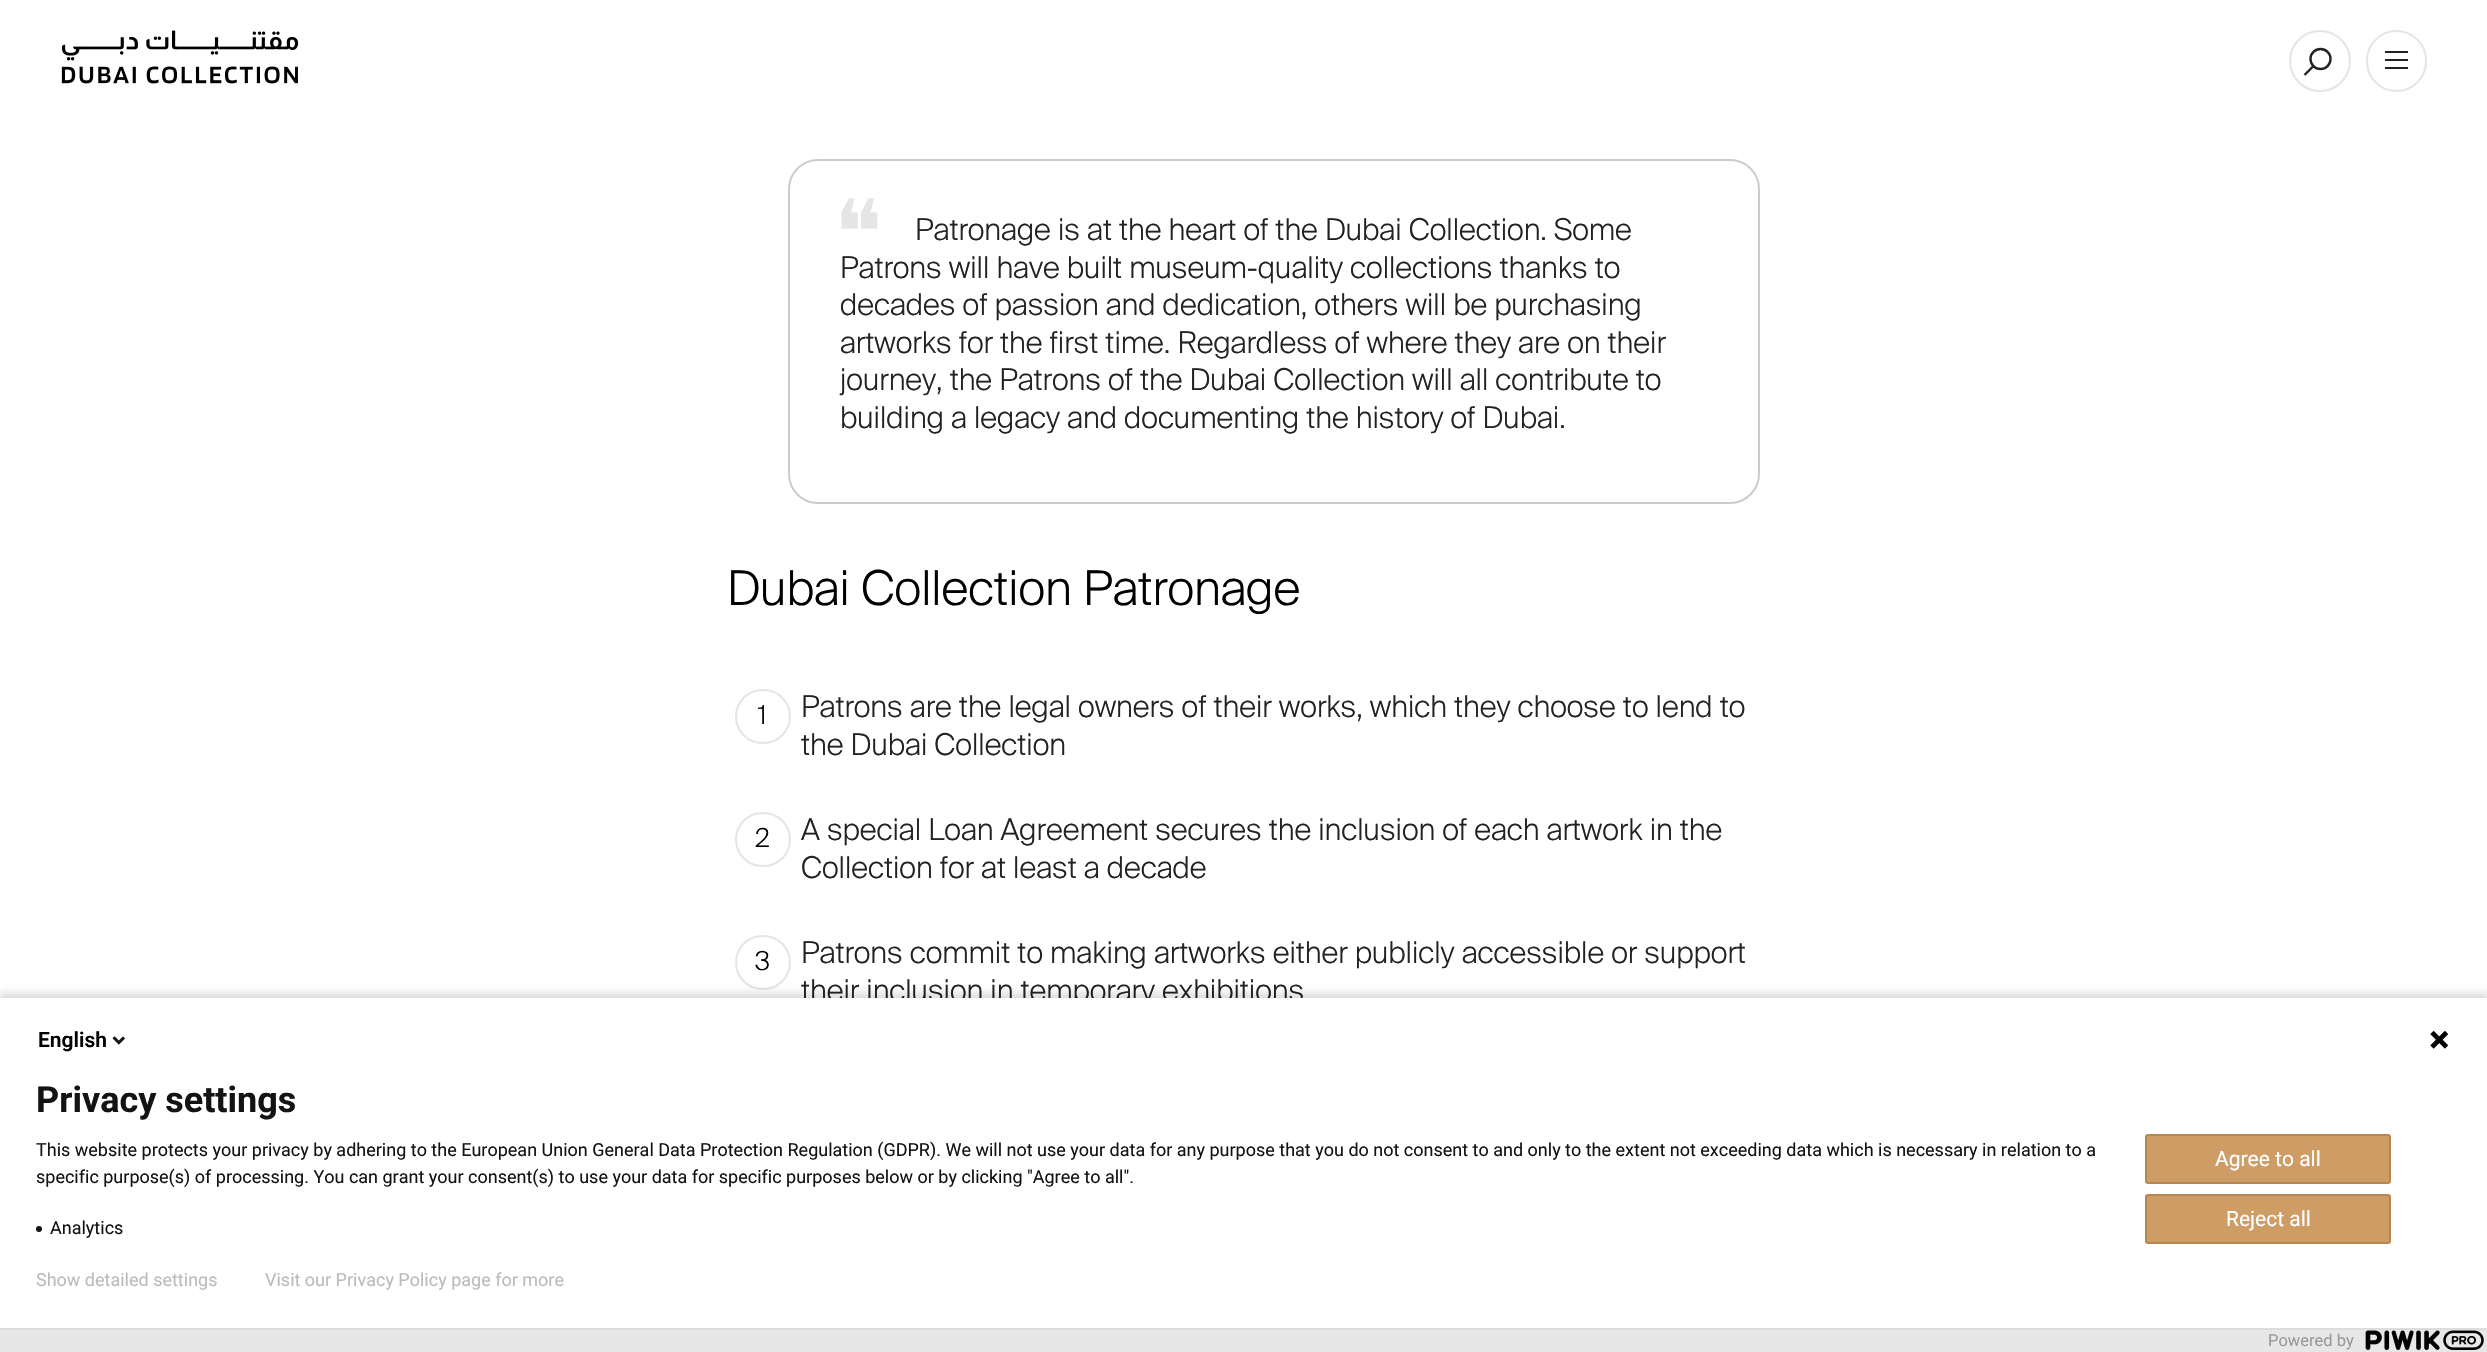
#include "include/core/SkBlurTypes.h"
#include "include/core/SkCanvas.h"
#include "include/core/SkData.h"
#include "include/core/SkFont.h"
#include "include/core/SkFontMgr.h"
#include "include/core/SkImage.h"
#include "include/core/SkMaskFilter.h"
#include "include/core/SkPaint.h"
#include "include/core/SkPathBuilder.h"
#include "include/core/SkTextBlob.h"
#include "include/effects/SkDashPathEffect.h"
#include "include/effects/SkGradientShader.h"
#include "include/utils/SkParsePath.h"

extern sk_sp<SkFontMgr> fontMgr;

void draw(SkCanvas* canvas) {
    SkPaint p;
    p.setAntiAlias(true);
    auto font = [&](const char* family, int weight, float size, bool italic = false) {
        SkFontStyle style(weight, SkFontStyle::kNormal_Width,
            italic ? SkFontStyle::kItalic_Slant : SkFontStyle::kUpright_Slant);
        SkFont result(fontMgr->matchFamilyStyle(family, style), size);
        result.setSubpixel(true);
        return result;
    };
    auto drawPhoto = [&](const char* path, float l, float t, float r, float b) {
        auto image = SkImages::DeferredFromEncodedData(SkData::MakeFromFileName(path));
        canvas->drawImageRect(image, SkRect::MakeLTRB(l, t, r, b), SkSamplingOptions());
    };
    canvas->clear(0xFFFFFFFF);
    drawPhoto("media/1.png", 61, 30, 299, 84);
    p.setStyle(SkPaint::kStroke_Style);
    p.setStrokeWidth(2);
    p.setColor(0xFFE5E5E5);
    canvas->drawCircle(2320, 61, 30, p);
    p.setStrokeWidth(2.4f);
    p.setColor(0xFF222222);
    canvas->drawPath(SkPathBuilder().moveTo(2314, 65.5f).lineTo(2304.5f, 75).detach(), p);
    canvas->drawCircle(2320.5f, 59, 10, p);
    p.setStrokeWidth(2);
    p.setColor(0xFFE5E5E5);
    canvas->drawRoundRect(SkRect::MakeLTRB(2367, 31, 2426, 91), 29.5f, 29.5f, p);
    p.setStyle(SkPaint::kFill_Style);
    {
        const struct { float l, t, r, b; SkColor color; } items[] = {
            {2385, 67, 2408, 69, 0xFF222222},
            {2385, 59, 2408, 61, 0xFF222222},
            {2385, 51, 2408, 53, 0xFF222222},
        };
        for (auto [l, t, r, b, color] : items) {
            p.setColor(color);
            canvas->drawRect(SkRect::MakeLTRB(l, t, r, b), p);
        }
    }
    p.setStyle(SkPaint::kStroke_Style);
    p.setColor(0xFFCCCCCC);
    canvas->drawRoundRect(SkRect::MakeLTRB(789, 160, 1759, 503), 29, 29, p);
    auto font1 = font("DejaVu Sans", 400, 90);
    p.setStyle(SkPaint::kFill_Style);
    p.setColor(0xFFE5E5E5);
    canvas->drawString("❝", 834, 264, font1, p);
    auto font2 = font("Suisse", 300, 30);
    p.setColor(0xFF222222);
    {
        const struct { const char* s; float x, y; } items[] = {
            {"Patronage is at the heart of the Dubai Collection. Some", 915, 240},
            {"Patrons will have built museum-quality collections thanks to", 840, 278},
            {"decades of passion and dedication, others will be purchasing", 840, 315},
            {"artworks for the first time. Regardless of where they are on their", 840, 353},
            {"journey, the Patrons of the Dubai Collection will all contribute to", 840, 390},
            {"building a legacy and documenting the history of Dubai.", 840, 428},
        };
        for (auto [s, x, y] : items) {
            canvas->drawString(s, x, y, font2, p);
        }
    }
    auto font3 = font("Suisse", 300, 48);
    p.setColor(0xFF000000);
    canvas->drawString("Dubai Collection Patronage", 727, 605, font3, p);
    p.setStyle(SkPaint::kStroke_Style);
    p.setColor(0xFFE5E5E5);
    canvas->drawRoundRect(SkRect::MakeLTRB(736, 690, 790, 743), 26.5f, 26.5f, p);
    auto font4 = font("Suisse", 300, 26);
    p.setStyle(SkPaint::kFill_Style);
    p.setColor(0xFF000000);
    canvas->drawString("1", 758, 724, font4, p);
    p.setColor(0xFF222222);
    canvas->drawString("Patrons are the legal owners of their works, which they choose to lend to", 801, 717, font2, p);
    canvas->drawString("the Dubai Collection", 801, 755, font2, p);
    p.setStyle(SkPaint::kStroke_Style);
    p.setColor(0xFFE5E5E5);
    canvas->drawRoundRect(SkRect::MakeLTRB(736, 813, 790, 866), 26.5f, 26.5f, p);
    p.setStyle(SkPaint::kFill_Style);
    p.setColor(0xFF000000);
    canvas->drawString("2", 755, 847, font4, p);
    p.setColor(0xFF222222);
    canvas->drawString("A special Loan Agreement secures the inclusion of each artwork in the", 801, 840, font2, p);
    canvas->drawString("Collection for at least a decade", 801, 878, font2, p);
    p.setStyle(SkPaint::kStroke_Style);
    p.setColor(0xFFE5E5E5);
    canvas->drawRoundRect(SkRect::MakeLTRB(736, 936, 790, 989), 26.5f, 26.5f, p);
    p.setStyle(SkPaint::kFill_Style);
    p.setColor(0xFF000000);
    canvas->drawString("3", 755, 970, font4, p);
    p.setColor(0xFF222222);
    canvas->drawString("Patrons commit to making artworks either publicly accessible or support", 801, 963, font2, p);
    canvas->drawString("their inclusion in temporary exhibitions", 801, 1001, font2, p);
    p.setColor(0x24000000);
    p.setMaskFilter(SkMaskFilter::MakeBlur(kNormal_SkBlurStyle, 4));
    canvas->drawRect(SkRect::MakeLTRB(-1, 993, 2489, 1352), p);
    p.setMaskFilter(nullptr);
    p.setColor(0xFFFFFFFF);
    canvas->drawRect(SkRect::MakeLTRB(0, 998, 2487, 1328), p);
    auto font5 = font("Roboto", 600, 21);
    p.setColor(0xFF000000);
    canvas->drawString("English", 38, 1047, font5, p);
    drawPhoto("media/2.png", 112, 1036, 125, 1045);
    drawPhoto("media/3.png", 2430, 1030, 2449, 1049);
    auto font6 = font("Roboto", 700, 36);
    p.setColor(0xFF131313);
    canvas->drawString("Privacy settings", 36, 1112, font6, p);
    auto font7 = font("Roboto", 400, 18);
    canvas->drawString("This website protects your privacy by adhering to the European Union General Data Protection Regulation (GDPR). We will not use your data for any purpose that you do not consent to and only to the extent not exceeding data which is necessary in relation to a", 36, 1156, font7, p);
    canvas->drawString("specific purpose(s) of processing. You can grant your consent(s) to use your data for specific purposes below or by clicking \"Agree to all\".", 36, 1183, font7, p);
    canvas->drawCircle(39, 1229, 3, p);
    canvas->drawString("Analytics", 50, 1234, font7, p);
    p.setColor(0xFFCE9D65);
    canvas->drawRoundRect(SkRect::MakeLTRB(2146, 1135, 2390, 1183), 2, 2, p);
    p.setStyle(SkPaint::kStroke_Style);
    p.setColor(0xFFB68750);
    canvas->drawRoundRect(SkRect::MakeLTRB(2146, 1135, 2390, 1183), 2, 2, p);
    auto font8 = font("Roboto", 400, 21);
    p.setStyle(SkPaint::kFill_Style);
    p.setColor(0xFFFFFFFF);
    canvas->drawString("Agree to all", 2215, 1166, font8, p);
    p.setColor(0xFFCE9D65);
    canvas->drawRoundRect(SkRect::MakeLTRB(2146, 1195, 2390, 1243), 2, 2, p);
    p.setStyle(SkPaint::kStroke_Style);
    p.setColor(0xFFB68750);
    canvas->drawRoundRect(SkRect::MakeLTRB(2146, 1195, 2390, 1243), 2, 2, p);
    p.setStyle(SkPaint::kFill_Style);
    p.setColor(0xFFFFFFFF);
    canvas->drawString("Reject all", 2226, 1226, font8, p);
    p.setColor(0xFFBBBBBB);
    canvas->drawString("Show detailed settings", 36, 1286, font7, p);
    canvas->drawString("Visit our Privacy Policy page for more", 265, 1286, font7, p);
    p.setColor(0xFFE7E7E7);
    canvas->drawRect(SkRect::MakeLTRB(0, 1330, 2487, 1352), p);
    p.setColor(0xFFDDDDDD);
    canvas->drawRect(SkRect::MakeLTRB(0, 1328, 2487, 1330), p);
    auto font9 = font("Roboto", 400, 16.5f);
    p.setColor(0xFF999999);
    canvas->drawString("Powered by", 2268, 1346, font9, p);
    drawPhoto("media/4.png", 2365, 1330, 2484, 1350);
}
